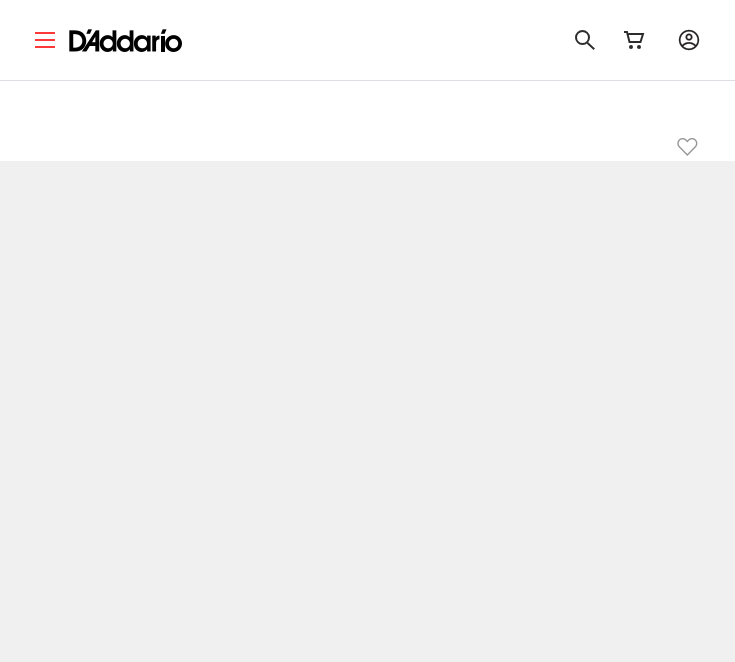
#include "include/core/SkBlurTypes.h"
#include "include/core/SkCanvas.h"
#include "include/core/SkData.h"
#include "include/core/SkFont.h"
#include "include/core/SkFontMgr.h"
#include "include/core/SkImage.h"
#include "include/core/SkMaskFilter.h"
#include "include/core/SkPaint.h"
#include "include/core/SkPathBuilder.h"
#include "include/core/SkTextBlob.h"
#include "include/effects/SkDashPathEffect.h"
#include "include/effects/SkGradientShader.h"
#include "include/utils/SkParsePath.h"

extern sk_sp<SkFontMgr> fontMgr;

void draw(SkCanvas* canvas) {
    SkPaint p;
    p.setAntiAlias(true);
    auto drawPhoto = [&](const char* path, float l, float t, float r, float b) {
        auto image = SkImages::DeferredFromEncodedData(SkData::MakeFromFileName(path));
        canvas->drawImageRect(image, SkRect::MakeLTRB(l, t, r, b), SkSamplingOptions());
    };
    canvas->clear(0xFFFFFFFF);
    {
        const struct { float l, t, r, b; SkColor color; } items[] = {
            {0, 80, 735, 81, 0xFFDBDFE4},
            {35, 32, 55, 34, 0xFFFF3937},
            {35, 39, 55, 41, 0xFFFF3937},
            {35, 46, 55, 48, 0xFFFF3937},
        };
        for (auto [l, t, r, b, color] : items) {
            p.setColor(color);
            canvas->drawRect(SkRect::MakeLTRB(l, t, r, b), p);
        }
    }
    drawPhoto("media/1.png", 69, 29, 182, 52);
    p.setStyle(SkPaint::kStroke_Style);
    p.setStrokeWidth(2);
    p.setColor(0xFF2C2C2C);
    canvas->drawCircle(582.5f, 37.5f, 6.5f, p);
    p.setStrokeCap(SkPaint::kSquare_Cap);
    canvas->drawPath(SkPathBuilder().moveTo(593.5f, 48.5f).lineTo(588, 43.5f).detach(), p);
    p.setStyle(SkPaint::kFill_Style);
    canvas->drawCircle(631, 47, 2, p);
    canvas->drawCircle(639, 47, 2, p);
    p.setStyle(SkPaint::kStroke_Style);
    p.setStrokeCap(SkPaint::kButt_Cap);
    canvas->drawPath(SkPathBuilder().moveTo(624, 32).lineTo(627, 32).lineTo(629.5f, 42).lineTo(640.5f, 42).lineTo(643, 34).lineTo(628.5f, 34).detach(), p);
    drawPhoto("media/2.png", 678, 29, 700, 51);
    drawPhoto("media/3.png", 677, 138, 698, 156);
    p.setStyle(SkPaint::kFill_Style);
    p.setColor(0xFFF0F0F0);
    canvas->drawRect(SkRect::MakeLTRB(0, 161, 735, 662), p);
}
